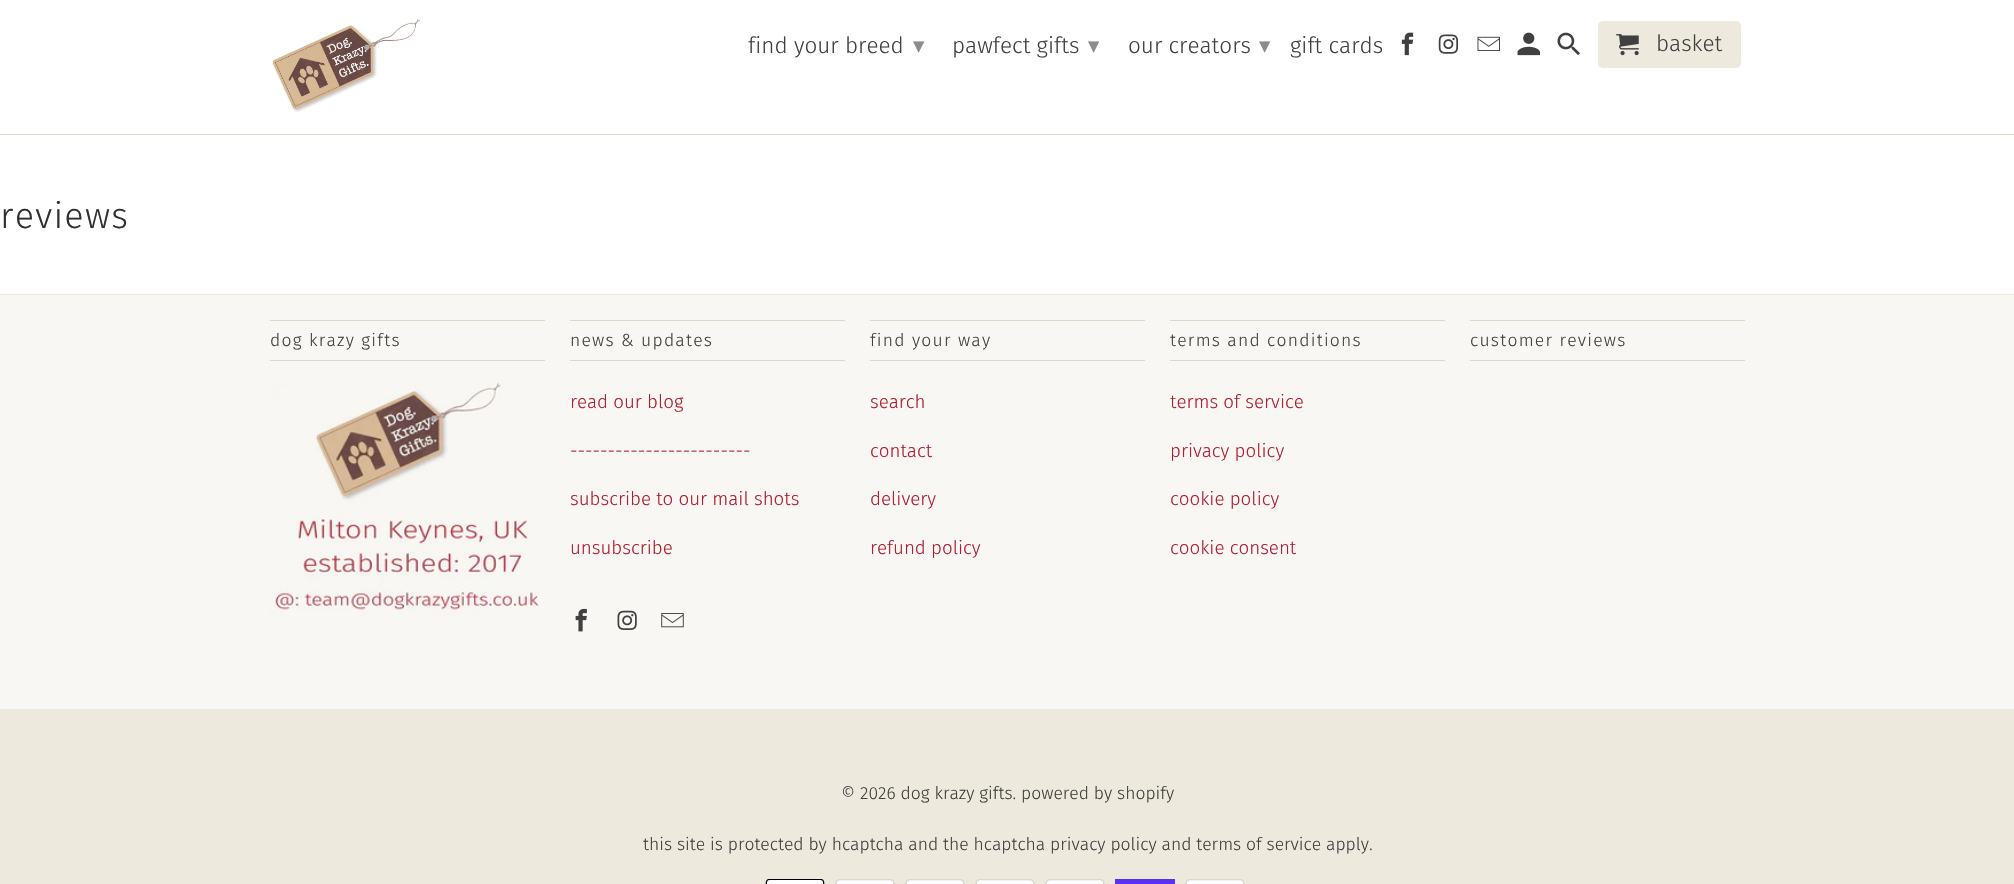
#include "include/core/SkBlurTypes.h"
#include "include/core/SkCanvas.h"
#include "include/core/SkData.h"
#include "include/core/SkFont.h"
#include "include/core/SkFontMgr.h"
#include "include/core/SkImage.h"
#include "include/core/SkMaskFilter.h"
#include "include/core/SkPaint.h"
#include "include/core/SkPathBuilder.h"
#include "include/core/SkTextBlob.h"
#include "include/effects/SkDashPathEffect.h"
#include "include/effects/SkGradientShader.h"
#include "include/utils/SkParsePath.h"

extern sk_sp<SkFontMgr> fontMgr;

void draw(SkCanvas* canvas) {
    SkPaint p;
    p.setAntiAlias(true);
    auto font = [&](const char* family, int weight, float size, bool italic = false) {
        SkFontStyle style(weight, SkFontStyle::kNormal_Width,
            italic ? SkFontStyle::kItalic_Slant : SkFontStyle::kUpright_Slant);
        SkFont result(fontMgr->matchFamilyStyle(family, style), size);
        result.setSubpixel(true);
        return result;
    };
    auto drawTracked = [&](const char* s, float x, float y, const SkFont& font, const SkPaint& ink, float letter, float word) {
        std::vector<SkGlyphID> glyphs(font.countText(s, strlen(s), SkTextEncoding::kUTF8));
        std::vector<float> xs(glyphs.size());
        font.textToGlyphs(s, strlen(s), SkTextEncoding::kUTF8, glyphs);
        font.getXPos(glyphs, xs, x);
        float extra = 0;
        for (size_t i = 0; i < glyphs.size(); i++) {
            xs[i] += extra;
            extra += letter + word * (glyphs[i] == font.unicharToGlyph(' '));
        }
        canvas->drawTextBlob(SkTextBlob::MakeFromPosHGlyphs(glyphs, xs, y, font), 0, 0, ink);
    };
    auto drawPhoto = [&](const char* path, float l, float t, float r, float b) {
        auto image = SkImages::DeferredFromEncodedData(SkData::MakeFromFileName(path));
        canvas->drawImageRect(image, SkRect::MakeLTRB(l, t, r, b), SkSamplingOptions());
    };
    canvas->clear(0xFFFFFFFF);
    p.setColor(0xFFDED6C7);
    canvas->drawRect(SkRect::MakeLTRB(0, 134, 2014, 135), p);
    drawPhoto("media/1.png", 272, 18, 420, 112);
    auto font1 = font("Fira Sans", 300, 22.5f);
    p.setColor(0xFF404040);
    canvas->drawString("find your breed", 748, 53, font1, p);
    auto font2 = font("DejaVu Sans", 400, 22.5f);
    p.setColor(0xFF8C8C8C);
    canvas->drawString("▾", 913, 53, font2, p);
    p.setColor(0xFF404040);
    canvas->drawString("pawfect gifts", 952, 53, font1, p);
    p.setColor(0xFF8C8C8C);
    canvas->drawString("▾", 1088, 53, font2, p);
    p.setColor(0xFF404040);
    canvas->drawString("our creators", 1128, 53, font1, p);
    p.setColor(0xFF8C8C8C);
    canvas->drawString("▾", 1259, 53, font2, p);
    p.setColor(0xFF404040);
    canvas->drawString("gift cards", 1290, 53, font1, p);
    drawPhoto("media/2.png", 1401, 32, 1414, 56);
    drawPhoto("media/3.png", 1438, 34, 1459, 54);
    drawPhoto("media/4.png", 1477, 36, 1500, 51);
    drawPhoto("media/5.png", 1517, 32, 1540, 56);
    drawPhoto("media/6.png", 1557, 32, 1580, 55);
    p.setColor(0xFFEDE9DD);
    canvas->drawRoundRect(SkRect::MakeLTRB(1598, 21, 1741, 68), 5, 5, p);
    drawPhoto("media/7.png", 1616, 34, 1639, 56);
    p.setColor(0xFF404040);
    canvas->drawString("basket", 1656, 51, font1, p);
    auto font3 = font("Fira Sans", 300, 36);
    p.setColor(0xFF303030);
    drawTracked("reviews", 0, 228, font3, p, 1.25f, 0);
    {
        const struct { float l, t, r, b; SkColor color; } items[] = {
            {0, 295, 2014, 709, 0xFFF9F7F3},
            {0, 294, 2014, 295, 0xFFEDE9DD},
            {270, 320, 545, 321, 0xFFDED6C7},
            {270, 360, 545, 361, 0xFFDED6C7},
        };
        for (auto [l, t, r, b, color] : items) {
            p.setColor(color);
            canvas->drawRect(SkRect::MakeLTRB(l, t, r, b), p);
        }
    }
    auto font4 = font("Fira Sans", 300, 17.5f);
    p.setColor(0xFF404040);
    drawTracked("dog krazy gifts", 270, 346, font4, p, 1.25f, 0);
    drawPhoto("media/8.png", 270, 383, 539, 616);
    p.setColor(0xFFDED6C7);
    canvas->drawRect(SkRect::MakeLTRB(570, 320, 845, 321), p);
    canvas->drawRect(SkRect::MakeLTRB(570, 360, 845, 361), p);
    p.setColor(0xFF404040);
    drawTracked("news & updates", 570, 346, font4, p, 1.25f, 0);
    auto font5 = font("Fira Sans", 300, 18.75f);
    p.setColor(0xFFAF1F31);
    {
        const struct { const char* s; float x, y; } items[] = {
            {"read our blog", 570, 408},
            {"------------------------", 570, 457},
            {"subscribe to our mail shots", 570, 505},
            {"unsubscribe", 570, 554},
        };
        for (auto [s, x, y] : items) {
            canvas->drawString(s, x, y, font5, p);
        }
    }
    drawPhoto("media/9.png", 575, 608, 587, 632);
    drawPhoto("media/10.png", 617, 610, 637, 630);
    drawPhoto("media/11.png", 661, 613, 684, 628);
    p.setColor(0xFFDED6C7);
    canvas->drawRect(SkRect::MakeLTRB(870, 320, 1145, 321), p);
    canvas->drawRect(SkRect::MakeLTRB(870, 360, 1145, 361), p);
    p.setColor(0xFF404040);
    drawTracked("find your way", 870, 346, font4, p, 1.25f, 0);
    p.setColor(0xFFAF1F31);
    {
        const struct { const char* s; float x, y; } items[] = {
            {"search", 870, 408},
            {"contact", 870, 457},
            {"delivery", 870, 505},
            {"refund policy", 870, 554},
        };
        for (auto [s, x, y] : items) {
            canvas->drawString(s, x, y, font5, p);
        }
    }
    p.setColor(0xFFDED6C7);
    canvas->drawRect(SkRect::MakeLTRB(1170, 320, 1445, 321), p);
    canvas->drawRect(SkRect::MakeLTRB(1170, 360, 1445, 361), p);
    p.setColor(0xFF404040);
    drawTracked("terms and conditions", 1170, 346, font4, p, 1.25f, 0);
    p.setColor(0xFFAF1F31);
    {
        const struct { const char* s; float x, y; } items[] = {
            {"terms of service", 1170, 408},
            {"privacy policy", 1170, 457},
            {"cookie policy", 1170, 505},
            {"cookie consent", 1170, 554},
        };
        for (auto [s, x, y] : items) {
            canvas->drawString(s, x, y, font5, p);
        }
    }
    p.setColor(0xFFDED6C7);
    canvas->drawRect(SkRect::MakeLTRB(1470, 320, 1745, 321), p);
    canvas->drawRect(SkRect::MakeLTRB(1470, 360, 1745, 361), p);
    p.setColor(0xFF404040);
    drawTracked("customer reviews", 1470, 346, font4, p, 1.25f, 0);
    p.setColor(0xFFEDE9DD);
    canvas->drawRect(SkRect::MakeLTRB(0, 709, 2014, 884), p);
    p.setColor(0xFF404040);
    canvas->drawString("© 2026 dog krazy gifts. powered by shopify", 841, 799, font4, p);
    canvas->drawString("this site is protected by hcaptcha and the hcaptcha privacy policy and terms of service apply.", 643, 850, font4, p);
    drawPhoto("media/12.png", 765, 879, 825, 884);
    drawPhoto("media/13.png", 835, 879, 895, 884);
    drawPhoto("media/13.png", 905, 879, 965, 884);
    drawPhoto("media/13.png", 975, 879, 1035, 884);
    drawPhoto("media/13.png", 1045, 879, 1105, 884);
    p.setColor(0xFF5A31F4);
    canvas->drawRect(SkRect::MakeLTRB(1115, 879, 1175, 884), p);
    drawPhoto("media/13.png", 1185, 879, 1245, 884);
}
